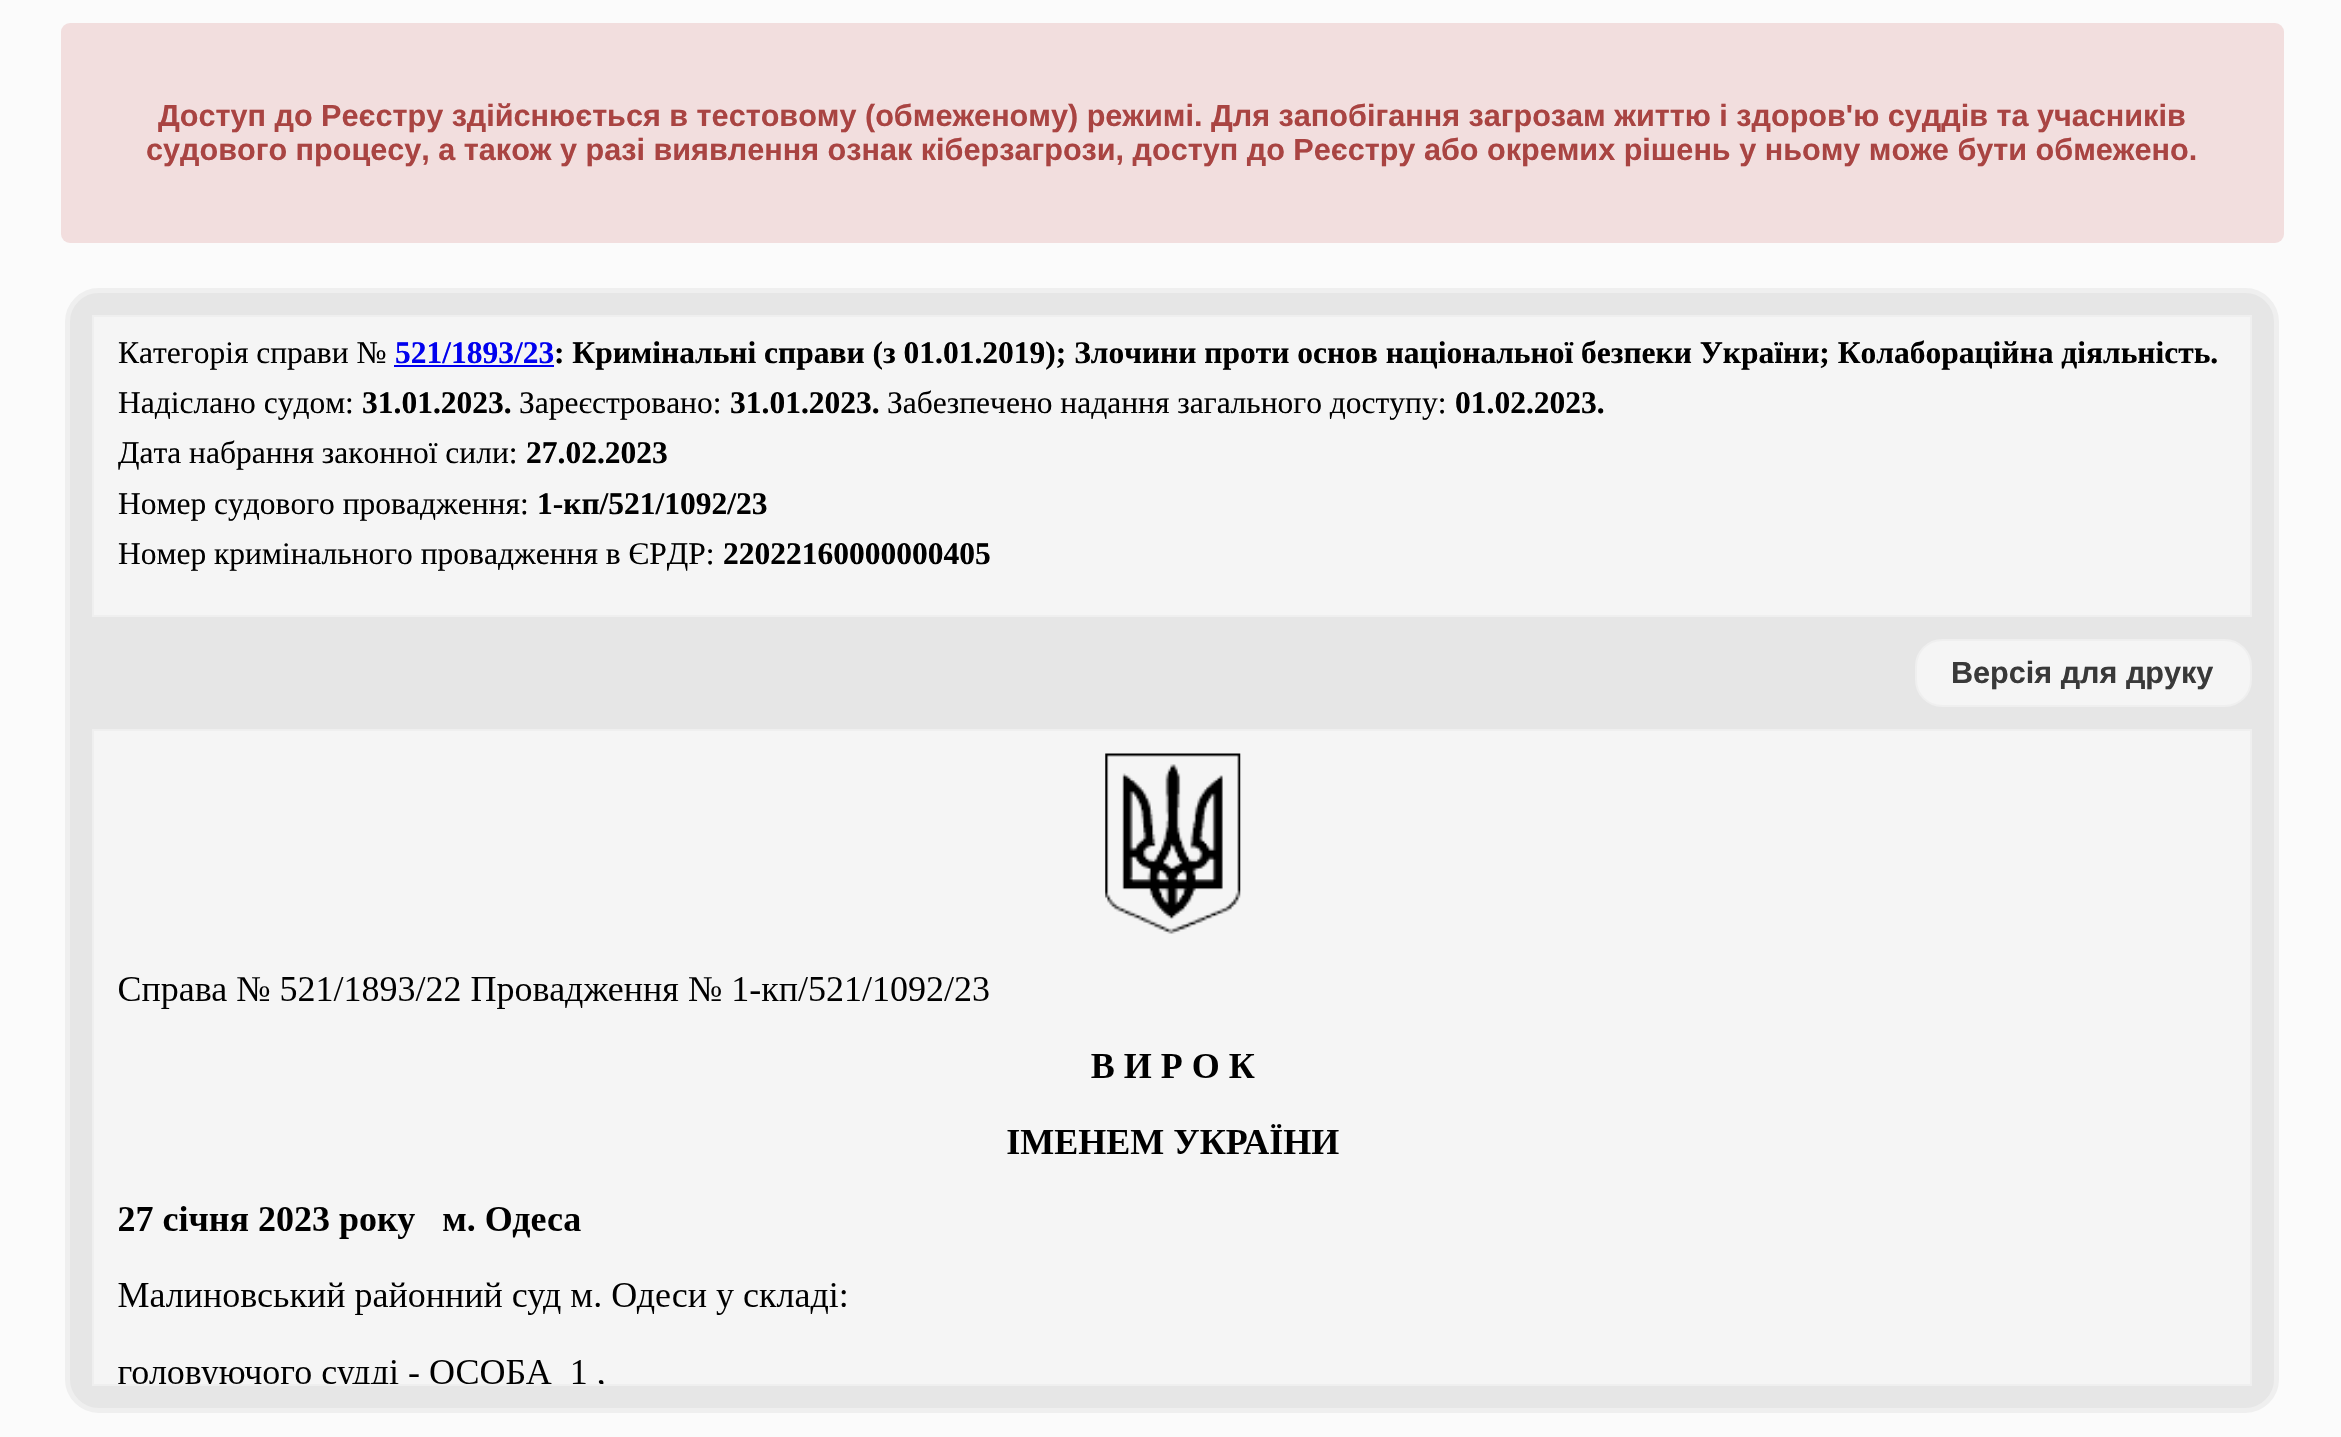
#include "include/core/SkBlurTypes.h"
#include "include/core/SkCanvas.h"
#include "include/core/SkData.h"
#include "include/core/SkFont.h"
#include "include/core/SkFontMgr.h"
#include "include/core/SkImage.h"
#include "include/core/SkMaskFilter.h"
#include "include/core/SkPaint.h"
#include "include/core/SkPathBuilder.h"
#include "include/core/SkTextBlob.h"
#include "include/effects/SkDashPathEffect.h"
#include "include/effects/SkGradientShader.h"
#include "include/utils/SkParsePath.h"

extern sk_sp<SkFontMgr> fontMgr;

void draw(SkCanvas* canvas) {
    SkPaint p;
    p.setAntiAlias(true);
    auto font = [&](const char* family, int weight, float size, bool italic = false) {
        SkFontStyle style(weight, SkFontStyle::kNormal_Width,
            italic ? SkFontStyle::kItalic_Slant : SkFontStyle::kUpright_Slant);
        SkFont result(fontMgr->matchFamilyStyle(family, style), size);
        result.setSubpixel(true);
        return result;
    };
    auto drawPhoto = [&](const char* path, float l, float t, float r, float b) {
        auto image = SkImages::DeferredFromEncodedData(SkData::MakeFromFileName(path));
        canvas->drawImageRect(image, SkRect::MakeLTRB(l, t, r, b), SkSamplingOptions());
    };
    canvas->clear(0xFFFBFBFB);
    p.setColor(0xFFF2DEDE);
    canvas->drawRoundRect(SkRect::MakeLTRB(61, 23, 2284, 243), 9, 9, p);
    auto font1 = font("Liberation Sans", 700, 30.6f);
    p.setColor(0xFFA94442);
    canvas->drawString("Доступ до Реєстру здійснюється в тестовому (обмеженому) режимі. Для запобігання загрозам життю і здоров'ю суддів та учасників", 158, 126, font1, p);
    canvas->drawString("судового процесу, а також у разі виявлення ознак кіберзагрози, доступ до Реєстру або окремих рішень у ньому може бути обмежено.", 146, 160, font1, p);
    p.setColor(0xFFE6E6E6);
    canvas->drawRoundRect(SkRect::MakeLTRB(67.5f, 290.5f, 2276.5f, 1410.5f), 31.5f, 31.5f, p);
    p.setStyle(SkPaint::kStroke_Style);
    p.setStrokeWidth(5);
    p.setColor(0xFFEFEFEF);
    canvas->drawRoundRect(SkRect::MakeLTRB(67.5f, 290.5f, 2276.5f, 1410.5f), 31.5f, 31.5f, p);
    p.setStyle(SkPaint::kFill_Style);
    p.setColor(0xFFF5F5F5);
    canvas->drawRect(SkRect::MakeLTRB(93, 316, 2251, 616), p);
    p.setStyle(SkPaint::kStroke_Style);
    p.setStrokeWidth(2);
    p.setColor(0xFFEFEFEF);
    canvas->drawRect(SkRect::MakeLTRB(93, 316, 2251, 616), p);
    auto font2 = font("Liberation Serif", 400, 31.5f);
    p.setStyle(SkPaint::kFill_Style);
    p.setColor(0xFF000000);
    canvas->drawString("Категорія справи №", 118, 363, font2, p);
    auto font3 = font("Liberation Serif", 700, 31.5f);
    p.setColor(0xFF0000EE);
    canvas->drawString("521/1893/23", 395, 363, font3, p);
    p.setColor(0xFF000000);
    canvas->drawString(": Кримінальні справи (з 01.01.2019); Злочини проти основ національної безпеки України; Колабораційна діяльність.", 554, 363, font3, p);
    p.setColor(0xFF0000EE);
    canvas->drawRect(SkRect::MakeLTRB(394, 365, 554, 367), p);
    p.setColor(0xFF000000);
    canvas->drawString("Надіслано судом:", 118, 413, font2, p);
    canvas->drawString("31.01.2023.", 362, 413, font3, p);
    canvas->drawString("Зареєстровано:", 519, 413, font2, p);
    canvas->drawString("31.01.2023.", 730, 413, font3, p);
    canvas->drawString("Забезпечено надання загального доступу:", 887, 413, font2, p);
    canvas->drawString("01.02.2023.", 1455, 413, font3, p);
    canvas->drawString("Дата набрання законної сили:", 118, 463, font2, p);
    canvas->drawString("27.02.2023", 526, 463, font3, p);
    canvas->drawString("Номер судового провадження:", 118, 514, font2, p);
    canvas->drawString("1-кп/521/1092/23", 537, 514, font3, p);
    canvas->drawString("Номер кримінального провадження в ЄРДР:", 118, 564, font2, p);
    canvas->drawString("22022160000000405", 723, 564, font3, p);
    p.setColor(0xFFF5F5F5);
    canvas->drawRoundRect(SkRect::MakeLTRB(1916, 640, 2251, 706), 26, 26, p);
    p.setStyle(SkPaint::kStroke_Style);
    p.setColor(0xFFEFEFEF);
    canvas->drawRoundRect(SkRect::MakeLTRB(1916, 640, 2251, 706), 26, 26, p);
    p.setStyle(SkPaint::kFill_Style);
    p.setColor(0xFF393939);
    canvas->drawString("Версія для друку", 1951, 683, font1, p);
    p.setColor(0xFFF5F5F5);
    canvas->drawRect(SkRect::MakeLTRB(93, 730, 2251, 1385), p);
    p.setStyle(SkPaint::kStroke_Style);
    p.setColor(0xFFEFEFEF);
    canvas->drawRect(SkRect::MakeLTRB(93, 730, 2251, 1385), p);
    drawPhoto("media/1.png", 118, 753, 1339, 1384);
}
